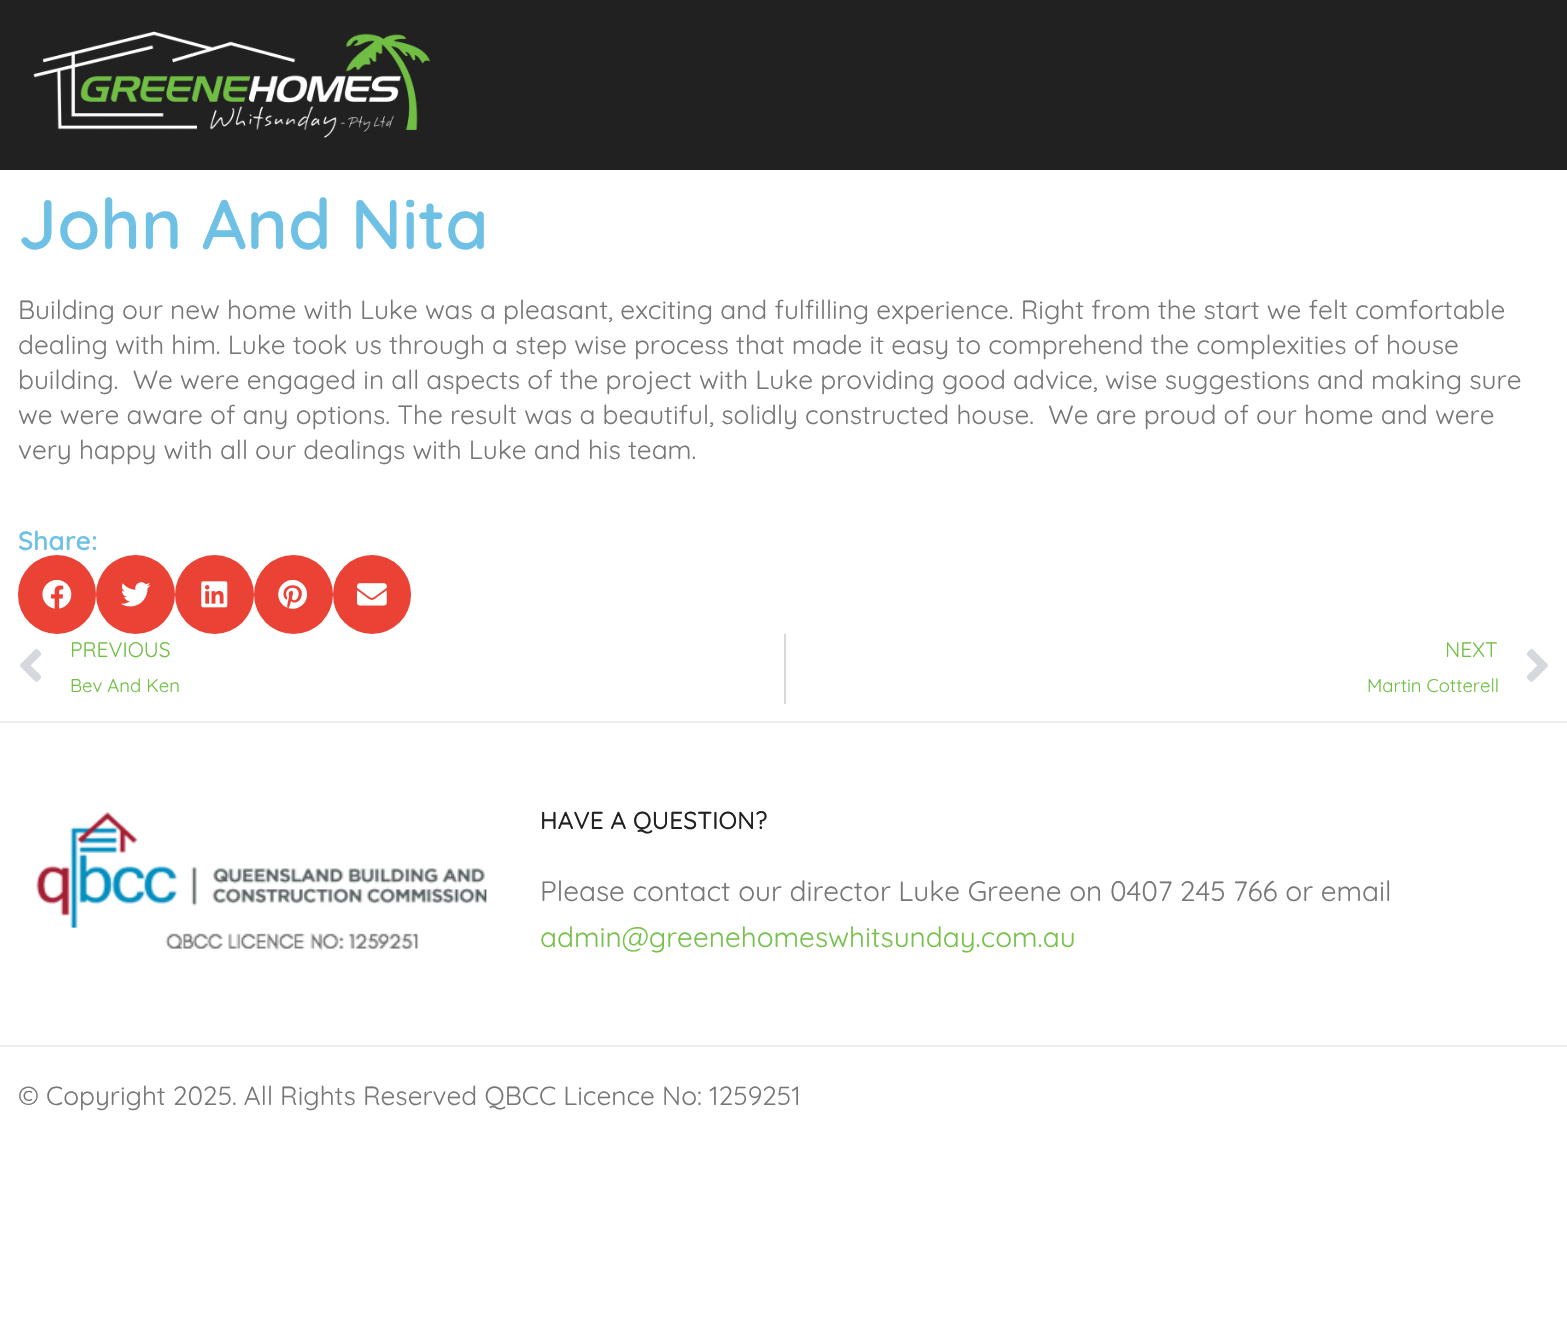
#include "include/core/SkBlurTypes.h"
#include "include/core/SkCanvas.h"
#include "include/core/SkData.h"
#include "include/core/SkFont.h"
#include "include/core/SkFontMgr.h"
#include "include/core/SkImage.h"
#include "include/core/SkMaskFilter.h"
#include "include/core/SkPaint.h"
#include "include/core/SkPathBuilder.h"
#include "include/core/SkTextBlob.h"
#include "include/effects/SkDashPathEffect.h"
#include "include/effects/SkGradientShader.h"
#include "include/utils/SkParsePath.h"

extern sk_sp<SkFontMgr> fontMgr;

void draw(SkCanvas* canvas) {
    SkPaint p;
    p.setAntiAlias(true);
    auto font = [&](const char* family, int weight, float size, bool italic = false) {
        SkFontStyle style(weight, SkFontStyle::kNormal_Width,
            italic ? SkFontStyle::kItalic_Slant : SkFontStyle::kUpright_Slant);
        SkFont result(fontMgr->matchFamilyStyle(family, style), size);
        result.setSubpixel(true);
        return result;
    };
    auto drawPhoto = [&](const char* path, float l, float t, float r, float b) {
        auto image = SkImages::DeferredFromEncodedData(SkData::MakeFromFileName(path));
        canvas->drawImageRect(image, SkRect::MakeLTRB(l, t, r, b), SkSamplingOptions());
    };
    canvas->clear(0xFFFFFFFF);
    p.setColor(0xFF212121);
    canvas->drawRect(SkRect::MakeLTRB(0, 0, 1567, 170), p);
    drawPhoto("media/1.png", 33, 31, 431, 138);
    auto font1 = font("Quicksand", 600, 70);
    p.setColor(0xFF6EC1E4);
    canvas->drawString("John And Nita", 18, 249, font1, p);
    auto font2 = font("Quicksand", 400, 26.25f);
    p.setColor(0xFF777777);
    {
        const struct { const char* s; float x, y; } items[] = {
            {"Building our new home with Luke was a pleasant, exciting and fulfilling experience. Right from the start we felt comfortable", 18, 319},
            {"dealing with him. Luke took us through a step wise process that made it easy to comprehend the complexities of house", 18, 354},
            {"building.  We were engaged in all aspects of the project with Luke providing good advice, wise suggestions and making sure", 18, 389},
            {"we were aware of any options. The result was a beautiful, solidly constructed house.  We are proud of our home and were", 18, 424},
            {"very happy with all our dealings with Luke and his team.", 18, 459},
        };
        for (auto [s, x, y] : items) {
            canvas->drawString(s, x, y, font2, p);
        }
    }
    auto font3 = font("Quicksand", 600, 26.25f);
    p.setColor(0xFF6EC1E4);
    canvas->drawString("Share:", 18, 550, font3, p);
    p.setColor(0xFFEA4335);
    canvas->drawRoundRect(SkRect::MakeLTRB(18, 555, 96, 634), 39, 39, p);
    drawPhoto("media/2.png", 42, 579, 72, 609);
    canvas->drawCircle(135.5f, 594.5f, 39.5f, p);
    drawPhoto("media/3.png", 121, 582, 151, 607);
    canvas->drawCircle(214.5f, 594.5f, 39.5f, p);
    drawPhoto("media/4.png", 201, 581, 228, 608);
    canvas->drawCircle(293.5f, 594.5f, 39.5f, p);
    drawPhoto("media/5.png", 278, 579, 308, 609);
    canvas->drawRoundRect(SkRect::MakeLTRB(333, 555, 411, 634), 39, 39, p);
    drawPhoto("media/6.png", 357, 583, 387, 606);
    drawPhoto("media/7.png", 20, 649, 42, 682);
    auto font4 = font("Quicksand", 400, 21);
    p.setColor(0xFF71BF44);
    canvas->drawString("PREVIOUS", 70, 657, font4, p);
    auto font5 = font("Quicksand", 400, 18.5f);
    canvas->drawString("Bev And Ken", 70, 692, font5, p);
    p.setColor(0xFFD5D8DC);
    canvas->drawRect(SkRect::MakeLTRB(784, 634, 786, 704), p);
    p.setColor(0xFF71BF44);
    canvas->drawString("NEXT", 1445, 657, font4, p);
    canvas->drawString("Martin Cotterell", 1367, 692, font5, p);
    drawPhoto("media/8.png", 1526, 649, 1548, 682);
    p.setColor(0xFFEEEEEE);
    canvas->drawRect(SkRect::MakeLTRB(0, 721, 1567, 723), p);
    drawPhoto("media/9.png", 36, 812, 487, 951);
    auto font6 = font("Quicksand", 500, 24.5f);
    p.setColor(0xFF212121);
    canvas->drawString("HAVE A QUESTION?", 540, 829, font6, p);
    auto font7 = font("Quicksand", 400, 28);
    p.setColor(0xFF777777);
    canvas->drawString("Please contact our director Luke Greene on 0407 245 766 or email", 540, 901, font7, p);
    p.setColor(0xFF77C14C);
    canvas->drawString("admin@greenehomeswhitsunday.com.au", 540, 947, font7, p);
    p.setColor(0xFFEEEEEE);
    canvas->drawRect(SkRect::MakeLTRB(0, 1045, 1567, 1047), p);
    p.setColor(0xFF777777);
    canvas->drawString("© Copyright 2025. All Rights Reserved QBCC Licence No: 1259251", 18, 1105, font2, p);
}
